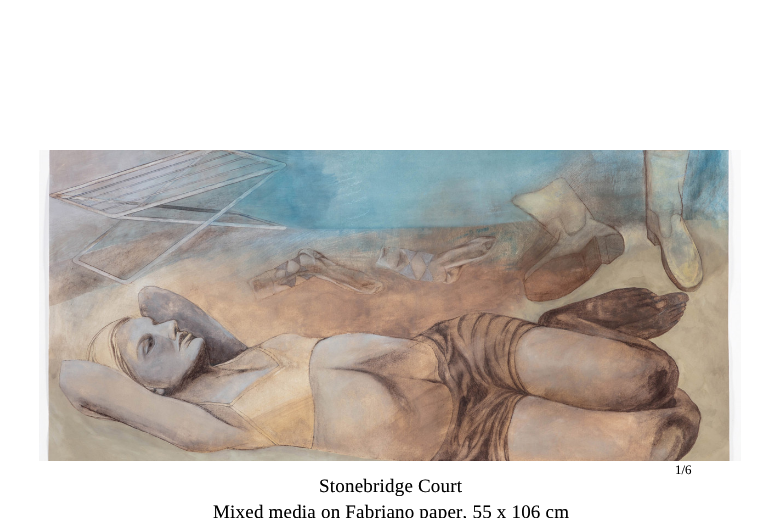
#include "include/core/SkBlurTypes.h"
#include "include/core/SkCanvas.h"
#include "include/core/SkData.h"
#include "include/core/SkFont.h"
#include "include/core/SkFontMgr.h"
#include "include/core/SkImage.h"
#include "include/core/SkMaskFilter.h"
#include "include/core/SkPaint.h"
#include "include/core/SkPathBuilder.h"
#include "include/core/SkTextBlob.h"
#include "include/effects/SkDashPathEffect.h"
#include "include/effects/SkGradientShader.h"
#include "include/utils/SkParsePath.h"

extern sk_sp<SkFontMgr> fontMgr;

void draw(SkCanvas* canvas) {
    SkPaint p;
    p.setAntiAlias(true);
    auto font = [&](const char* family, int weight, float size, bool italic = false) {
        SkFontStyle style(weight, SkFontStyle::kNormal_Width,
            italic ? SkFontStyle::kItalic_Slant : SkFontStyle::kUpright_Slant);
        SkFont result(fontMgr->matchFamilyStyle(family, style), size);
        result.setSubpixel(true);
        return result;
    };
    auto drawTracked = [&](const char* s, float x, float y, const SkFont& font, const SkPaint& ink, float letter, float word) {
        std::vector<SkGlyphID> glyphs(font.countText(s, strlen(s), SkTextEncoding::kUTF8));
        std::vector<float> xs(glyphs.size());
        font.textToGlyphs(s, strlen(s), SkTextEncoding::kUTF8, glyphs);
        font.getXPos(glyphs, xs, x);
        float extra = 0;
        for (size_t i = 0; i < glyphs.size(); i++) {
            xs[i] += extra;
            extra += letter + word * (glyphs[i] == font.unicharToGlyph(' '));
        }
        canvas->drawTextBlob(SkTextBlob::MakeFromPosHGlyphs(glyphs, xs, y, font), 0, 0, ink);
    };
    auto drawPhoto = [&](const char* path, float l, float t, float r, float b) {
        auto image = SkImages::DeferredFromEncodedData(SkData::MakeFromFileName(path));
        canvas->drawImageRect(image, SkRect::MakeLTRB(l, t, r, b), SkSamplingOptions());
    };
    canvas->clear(0xFFFFFFFF);
    drawPhoto("media/1.png", 39, 150, 741, 461);
    auto font1 = font("Liberation Serif", 400, 13);
    p.setColor(0xFF000000);
    canvas->drawString("1/6", 675, 474, font1, p);
    auto font2 = font("Liberation Serif", 400, 19);
    drawTracked("Stonebridge Court", 319, 492, font2, p, 0.2f, 0);
    drawTracked("Mixed media on Fabriano paper, 55 x 106 cm", 213, 518, font2, p, 0.2f, 0);
}
